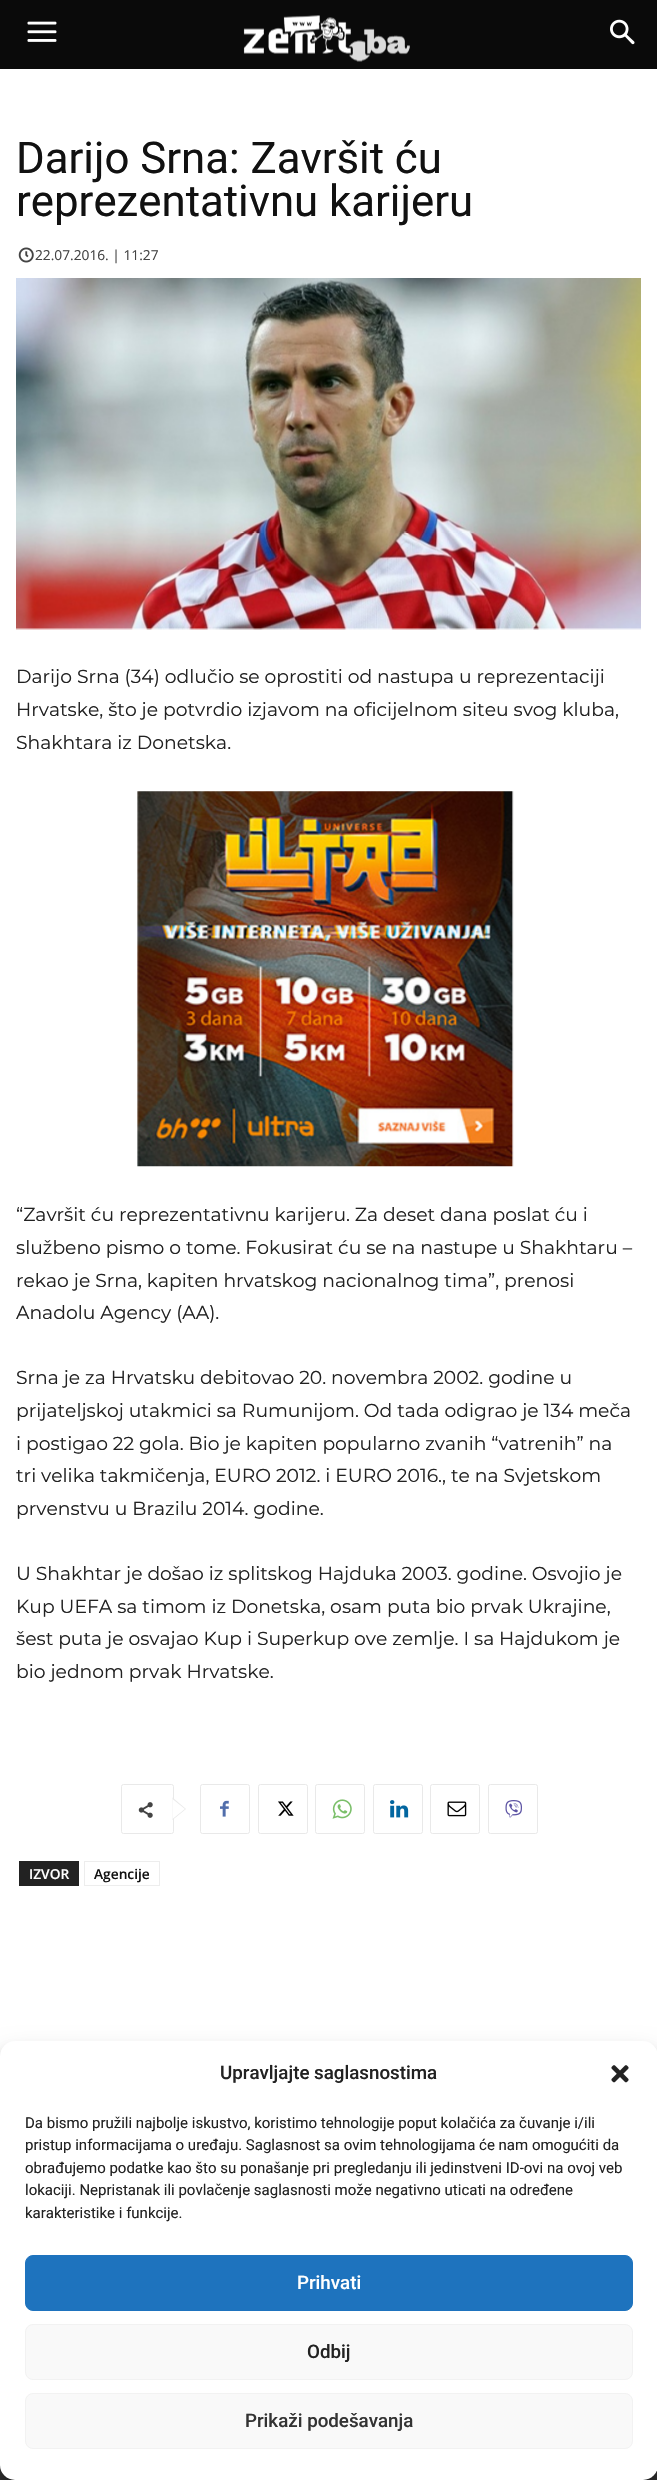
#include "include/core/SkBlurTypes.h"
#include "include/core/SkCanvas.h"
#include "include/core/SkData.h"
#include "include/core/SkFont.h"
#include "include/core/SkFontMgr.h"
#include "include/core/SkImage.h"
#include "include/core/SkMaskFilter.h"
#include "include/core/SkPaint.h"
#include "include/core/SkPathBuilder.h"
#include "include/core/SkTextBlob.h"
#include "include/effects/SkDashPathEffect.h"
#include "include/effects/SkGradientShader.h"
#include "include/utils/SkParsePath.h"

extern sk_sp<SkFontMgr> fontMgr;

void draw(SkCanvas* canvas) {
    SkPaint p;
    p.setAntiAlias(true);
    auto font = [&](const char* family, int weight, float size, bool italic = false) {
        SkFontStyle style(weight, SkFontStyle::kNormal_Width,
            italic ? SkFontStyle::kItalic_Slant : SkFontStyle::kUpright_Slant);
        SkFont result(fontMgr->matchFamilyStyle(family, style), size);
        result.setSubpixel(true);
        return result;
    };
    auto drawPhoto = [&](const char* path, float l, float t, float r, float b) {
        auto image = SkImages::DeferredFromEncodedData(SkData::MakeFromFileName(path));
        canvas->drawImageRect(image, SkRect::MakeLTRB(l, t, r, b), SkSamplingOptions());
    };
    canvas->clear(0xFFFFFFFF);
    p.setColor(0xFF333333);
    canvas->drawRect(SkRect::MakeLTRB(0, 2465, 657, 2480), p);
    p.setColor(0xFF0A0A0A);
    canvas->drawRect(SkRect::MakeLTRB(0, 0, 657, 69), p);
    drawPhoto("media/1.png", 27, 21, 57, 42);
    drawPhoto("media/2.png", 243, 15, 410, 62);
    drawPhoto("media/3.png", 610, 19, 635, 45);
    auto font1 = font("Roboto", 400, 43.75f);
    p.setColor(0xFF111111);
    canvas->drawString("Darijo Srna: Završit ću", 16, 173, font1, p);
    canvas->drawString("reprezentativnu karijeru", 16, 216, font1, p);
    drawPhoto("media/4.png", 18, 247, 34, 263);
    auto font2 = font("Open Sans", 400, 13.75f);
    p.setColor(0xFF444444);
    canvas->drawString("22.07.2016. | 11:27", 35, 260, font2, p);
    drawPhoto("media/5.png", 16, 278, 641, 630);
    auto font3 = font("Montserrat", 400, 18.75f);
    p.setColor(0xFF222222);
    {
        const struct { const char* s; float x, y; } items[] = {
            {"Darijo Srna (34) odlučio se oprostiti od nastupa u reprezentaciji", 16, 683},
            {"Hrvatske, što je potvrdio izjavom na oficijelnom siteu svog kluba,", 16, 716},
            {"Shakhtara iz Donetska.", 16, 749},
        };
        for (auto [s, x, y] : items) {
            canvas->drawString(s, x, y, font3, p);
        }
    }
    drawPhoto("media/6.png", 137, 791, 514, 1167);
    {
        const struct { const char* s; float x, y; } items[] = {
            {"“Završit ću reprezentativnu karijeru. Za deset dana poslat ću i", 16, 1221},
            {"službeno pismo o tome. Fokusirat ću se na nastupe u Shakhtaru –", 16, 1254},
            {"rekao je Srna, kapiten hrvatskog nacionalnog tima”, prenosi", 16, 1287},
            {"Anadolu Agency (AA).", 16, 1319},
            {"Srna je za Hrvatsku debitovao 20. novembra 2002. godine u", 16, 1384},
            {"prijateljskoj utakmici sa Rumunijom. Od tada odigrao je 134 meča", 16, 1417},
            {"i postigao 22 gola. Bio je kapiten popularno zvanih “vatrenih” na", 16, 1450},
            {"tri velika takmičenja, EURO 2012. i EURO 2016., te na Svjetskom", 16, 1482},
            {"prvenstvu u Brazilu 2014. godine.", 16, 1515},
            {"U Shakhtar je došao iz splitskog Hajduka 2003. godine. Osvojio je", 16, 1580},
            {"Kup UEFA sa timom iz Donetska, osam puta bio prvak Ukrajine,", 16, 1613},
            {"šest puta je osvajao Kup i Superkup ove zemlje. I sa Hajdukom je", 16, 1645},
            {"bio jednom prvak Hrvatske.", 16, 1678},
        };
        for (auto [s, x, y] : items) {
            canvas->drawString(s, x, y, font3, p);
        }
    }
    p.setStyle(SkPaint::kStroke_Style);
    p.setStrokeWidth(1);
    p.setColor(0xFFE9E9E9);
    canvas->drawRoundRect(SkRect::MakeLTRB(121.5f, 1784.5f, 173.5f, 1833.5f), 2, 2, p);
    p.setStyle(SkPaint::kFill_Style);
    canvas->drawPath(SkPathBuilder().moveTo(172.5f, 1820).lineTo(172.5f, 1797.5f).lineTo(186, 1809).close().detach(), p);
    drawPhoto("media/7.png", 138, 1802, 153, 1818);
    p.setColor(0xFFFFFFFF);
    canvas->drawPath(SkPathBuilder().moveTo(172.5f, 1819).lineTo(172.5f, 1799).lineTo(185, 1809).close().detach(), p);
    p.setStyle(SkPaint::kStroke_Style);
    p.setColor(0xFFE9E9E9);
    canvas->drawRoundRect(SkRect::MakeLTRB(200.5f, 1784.5f, 249.5f, 1833.5f), 2, 2, p);
    drawPhoto("media/8.png", 220, 1800, 229, 1817);
    canvas->drawRoundRect(SkRect::MakeLTRB(258.5f, 1784.5f, 307.5f, 1833.5f), 2, 2, p);
    drawPhoto("media/9.png", 278, 1801, 294, 1816);
    canvas->drawRoundRect(SkRect::MakeLTRB(315.5f, 1784.5f, 364.5f, 1833.5f), 2, 2, p);
    drawPhoto("media/10.png", 332, 1799, 352, 1819);
    canvas->drawRoundRect(SkRect::MakeLTRB(373.5f, 1784.5f, 422.5f, 1833.5f), 2, 2, p);
    drawPhoto("media/11.png", 390, 1800, 409, 1818);
    canvas->drawRoundRect(SkRect::MakeLTRB(430.5f, 1784.5f, 479.5f, 1833.5f), 2, 2, p);
    drawPhoto("media/12.png", 447, 1801, 467, 1817);
    canvas->drawRoundRect(SkRect::MakeLTRB(488.5f, 1784.5f, 537.5f, 1833.5f), 2, 2, p);
    drawPhoto("media/13.png", 505, 1800, 522, 1818);
    p.setStyle(SkPaint::kFill_Style);
    p.setColor(0xFF222222);
    canvas->drawRect(SkRect::MakeLTRB(19, 1861, 79, 1886), p);
    auto font4 = font("Open Sans", 600, 13.75f);
    p.setColor(0xFFFFFFFF);
    canvas->drawString("IZVOR", 29, 1879, font4, p);
    p.setStyle(SkPaint::kStroke_Style);
    p.setColor(0xFFEDEDED);
    canvas->drawRect(SkRect::MakeLTRB(84.5f, 1861.5f, 159.5f, 1885.5f), p);
    p.setStyle(SkPaint::kFill_Style);
    p.setColor(0xFF111111);
    canvas->drawString("Agencije", 94, 1879, font4, p);
    p.setColor(0x3B000000);
    p.setMaskFilter(SkMaskFilter::MakeBlur(kNormal_SkBlurStyle, 4));
    canvas->drawRoundRect(SkRect::MakeLTRB(0, 2049, 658, 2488), 15, 15, p);
    p.setMaskFilter(nullptr);
    p.setColor(0x30000000);
    p.setMaskFilter(SkMaskFilter::MakeBlur(kNormal_SkBlurStyle, 12.5f));
    canvas->drawRoundRect(SkRect::MakeLTRB(0, 2054, 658, 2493), 15, 15, p);
    p.setMaskFilter(nullptr);
    p.setColor(0xFFFFFFFF);
    canvas->drawRoundRect(SkRect::MakeLTRB(0, 2041, 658, 2480), 15, 15, p);
    auto font5 = font("Roboto", 500, 18.75f);
    p.setColor(0xFF222222);
    canvas->drawString("Upravljajte saglasnostima", 220, 2079, font5, p);
    drawPhoto("media/14.png", 611, 2065, 629, 2083);
    auto font6 = font("Roboto", 400, 15);
    {
        const struct { const char* s; float x, y; } items[] = {
            {"Da bismo pružili najbolje iskustvo, koristimo tehnologije poput kolačića za čuvanje i/ili", 25, 2128},
            {"pristup informacijama o uređaju. Saglasnost sa ovim tehnologijama će nam omogućiti da", 25, 2150},
            {"obrađujemo podatke kao što su ponašanje pri pregledanju ili jedinstveni ID-ovi na ovoj veb", 25, 2173},
            {"lokaciji. Nepristanak ili povlačenje saglasnosti može negativno uticati na određene", 25, 2195},
            {"karakteristike i funkcije.", 25, 2218},
        };
        for (auto [s, x, y] : items) {
            canvas->drawString(s, x, y, font6, p);
        }
    }
    p.setColor(0xFF1E73BE);
    canvas->drawRoundRect(SkRect::MakeLTRB(25.5f, 2255.5f, 632.5f, 2310.5f), 7.5f, 7.5f, p);
    p.setStyle(SkPaint::kStroke_Style);
    canvas->drawRoundRect(SkRect::MakeLTRB(25.5f, 2255.5f, 632.5f, 2310.5f), 7.5f, 7.5f, p);
    p.setStyle(SkPaint::kFill_Style);
    p.setColor(0xFFFFFFFF);
    canvas->drawString("Prihvati", 297, 2289, font5, p);
    p.setColor(0xFFF9F9F9);
    canvas->drawRoundRect(SkRect::MakeLTRB(25.5f, 2324.5f, 632.5f, 2379.5f), 7.5f, 7.5f, p);
    p.setStyle(SkPaint::kStroke_Style);
    p.setColor(0xFFF2F2F2);
    canvas->drawRoundRect(SkRect::MakeLTRB(25.5f, 2324.5f, 632.5f, 2379.5f), 7.5f, 7.5f, p);
    p.setStyle(SkPaint::kFill_Style);
    p.setColor(0xFF222222);
    canvas->drawString("Odbij", 307, 2358, font5, p);
    p.setColor(0xFFF9F9F9);
    canvas->drawRoundRect(SkRect::MakeLTRB(25.5f, 2393.5f, 632.5f, 2448.5f), 7.5f, 7.5f, p);
    p.setStyle(SkPaint::kStroke_Style);
    p.setColor(0xFFF2F2F2);
    canvas->drawRoundRect(SkRect::MakeLTRB(25.5f, 2393.5f, 632.5f, 2448.5f), 7.5f, 7.5f, p);
    p.setStyle(SkPaint::kFill_Style);
    p.setColor(0xFF333333);
    canvas->drawString("Prikaži podešavanja", 245, 2427, font5, p);
}
